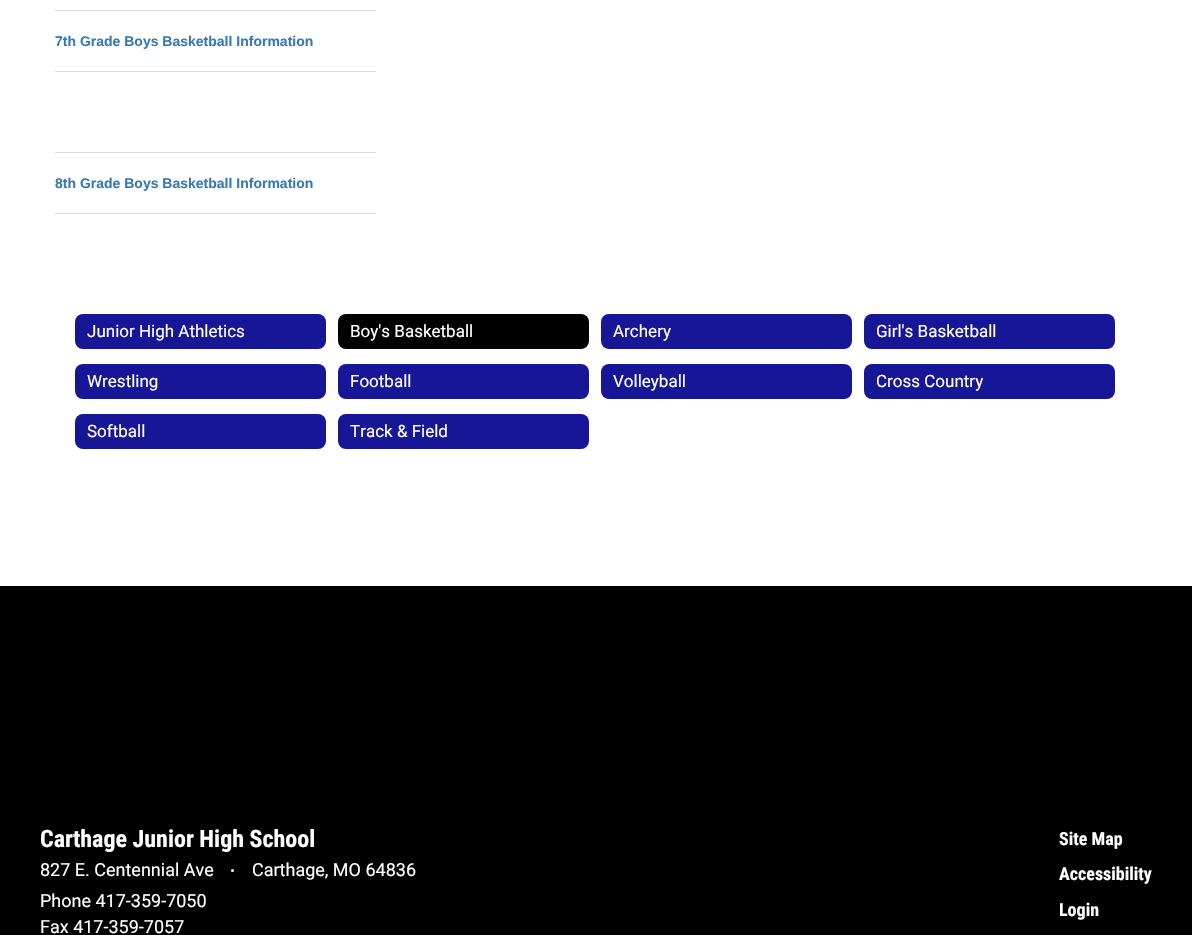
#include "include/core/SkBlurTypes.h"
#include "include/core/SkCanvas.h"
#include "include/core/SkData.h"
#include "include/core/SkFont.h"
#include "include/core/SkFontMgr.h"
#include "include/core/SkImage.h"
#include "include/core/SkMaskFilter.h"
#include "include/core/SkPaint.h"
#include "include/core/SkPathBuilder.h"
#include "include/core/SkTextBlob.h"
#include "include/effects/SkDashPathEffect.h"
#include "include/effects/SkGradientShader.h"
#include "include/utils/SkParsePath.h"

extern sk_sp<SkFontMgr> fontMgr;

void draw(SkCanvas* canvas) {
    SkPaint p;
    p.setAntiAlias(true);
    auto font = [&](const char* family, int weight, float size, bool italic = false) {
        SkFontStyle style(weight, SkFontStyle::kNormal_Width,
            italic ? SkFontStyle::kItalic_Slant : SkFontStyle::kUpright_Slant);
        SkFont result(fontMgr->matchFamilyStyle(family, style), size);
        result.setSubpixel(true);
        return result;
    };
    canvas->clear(0xFFFFFFFF);
    p.setColor(0xFFDDDDDD);
    canvas->drawRect(SkRect::MakeLTRB(55, 10, 376, 11), p);
    canvas->drawRect(SkRect::MakeLTRB(55, 71, 376, 72), p);
    auto font1 = font("Liberation Sans", 700, 14);
    p.setColor(0xFF337AB7);
    canvas->drawString("7th Grade Boys Basketball Information", 55, 46, font1, p);
    p.setColor(0xFFDDDDDD);
    canvas->drawRect(SkRect::MakeLTRB(55, 152, 376, 153), p);
    canvas->drawRect(SkRect::MakeLTRB(55, 213, 376, 214), p);
    p.setColor(0xFF337AB7);
    canvas->drawString("8th Grade Boys Basketball Information", 55, 188, font1, p);
    p.setColor(0xFF171696);
    canvas->drawRoundRect(SkRect::MakeLTRB(75, 314, 326, 349), 8, 8, p);
    auto font2 = font("Roboto", 400, 17);
    p.setColor(0xFFFFFFFF);
    canvas->drawString("Junior High Athletics", 87, 337, font2, p);
    p.setColor(0xFF000000);
    canvas->drawRoundRect(SkRect::MakeLTRB(338, 314, 589, 349), 8, 8, p);
    p.setColor(0xFFFFFFFF);
    canvas->drawString("Boy's Basketball", 350, 337, font2, p);
    p.setColor(0xFF171696);
    canvas->drawRoundRect(SkRect::MakeLTRB(601, 314, 852, 349), 8, 8, p);
    p.setColor(0xFFFFFFFF);
    canvas->drawString("Archery", 613, 337, font2, p);
    p.setColor(0xFF171696);
    canvas->drawRoundRect(SkRect::MakeLTRB(864, 314, 1115, 349), 8, 8, p);
    p.setColor(0xFFFFFFFF);
    canvas->drawString("Girl's Basketball", 876, 337, font2, p);
    p.setColor(0xFF171696);
    canvas->drawRoundRect(SkRect::MakeLTRB(75, 364, 326, 399), 8, 8, p);
    p.setColor(0xFFFFFFFF);
    canvas->drawString("Wrestling", 87, 387, font2, p);
    p.setColor(0xFF171696);
    canvas->drawRoundRect(SkRect::MakeLTRB(338, 364, 589, 399), 8, 8, p);
    p.setColor(0xFFFFFFFF);
    canvas->drawString("Football", 350, 387, font2, p);
    p.setColor(0xFF171696);
    canvas->drawRoundRect(SkRect::MakeLTRB(601, 364, 852, 399), 8, 8, p);
    p.setColor(0xFFFFFFFF);
    canvas->drawString("Volleyball", 613, 387, font2, p);
    p.setColor(0xFF171696);
    canvas->drawRoundRect(SkRect::MakeLTRB(864, 364, 1115, 399), 8, 8, p);
    p.setColor(0xFFFFFFFF);
    canvas->drawString("Cross Country", 876, 387, font2, p);
    p.setColor(0xFF171696);
    canvas->drawRoundRect(SkRect::MakeLTRB(75, 414, 326, 449), 8, 8, p);
    p.setColor(0xFFFFFFFF);
    canvas->drawString("Softball", 87, 437, font2, p);
    p.setColor(0xFF171696);
    canvas->drawRoundRect(SkRect::MakeLTRB(338, 414, 589, 449), 8, 8, p);
    p.setColor(0xFFFFFFFF);
    canvas->drawString("Track & Field", 350, 437, font2, p);
    p.setColor(0xFF000000);
    canvas->drawRect(SkRect::MakeLTRB(0, 586, 1192, 935), p);
    auto font3 = font("Roboto Condensed", 700, 24);
    p.setColor(0xFFFFFFFF);
    canvas->drawString("Carthage Junior High School", 40, 847, font3, p);
    auto font4 = font("Roboto", 400, 18);
    canvas->drawString("827 E. Centennial Ave", 40, 876, font4, p);
    canvas->drawCircle(232.5f, 870.5f, 1.5f, p);
    {
        const struct { const char* s; float x, y; } items[] = {
            {"Carthage, MO 64836", 252, 876},
            {"Phone 417-359-7050", 40, 907},
            {"Fax 417-359-7057", 40, 933},
        };
        for (auto [s, x, y] : items) {
            canvas->drawString(s, x, y, font4, p);
        }
    }
    auto font5 = font("Roboto Condensed", 700, 18);
    {
        const struct { const char* s; float x, y; } items[] = {
            {"Site Map", 1059, 845},
            {"Accessibility", 1059, 880},
            {"Login", 1059, 916},
        };
        for (auto [s, x, y] : items) {
            canvas->drawString(s, x, y, font5, p);
        }
    }
}
